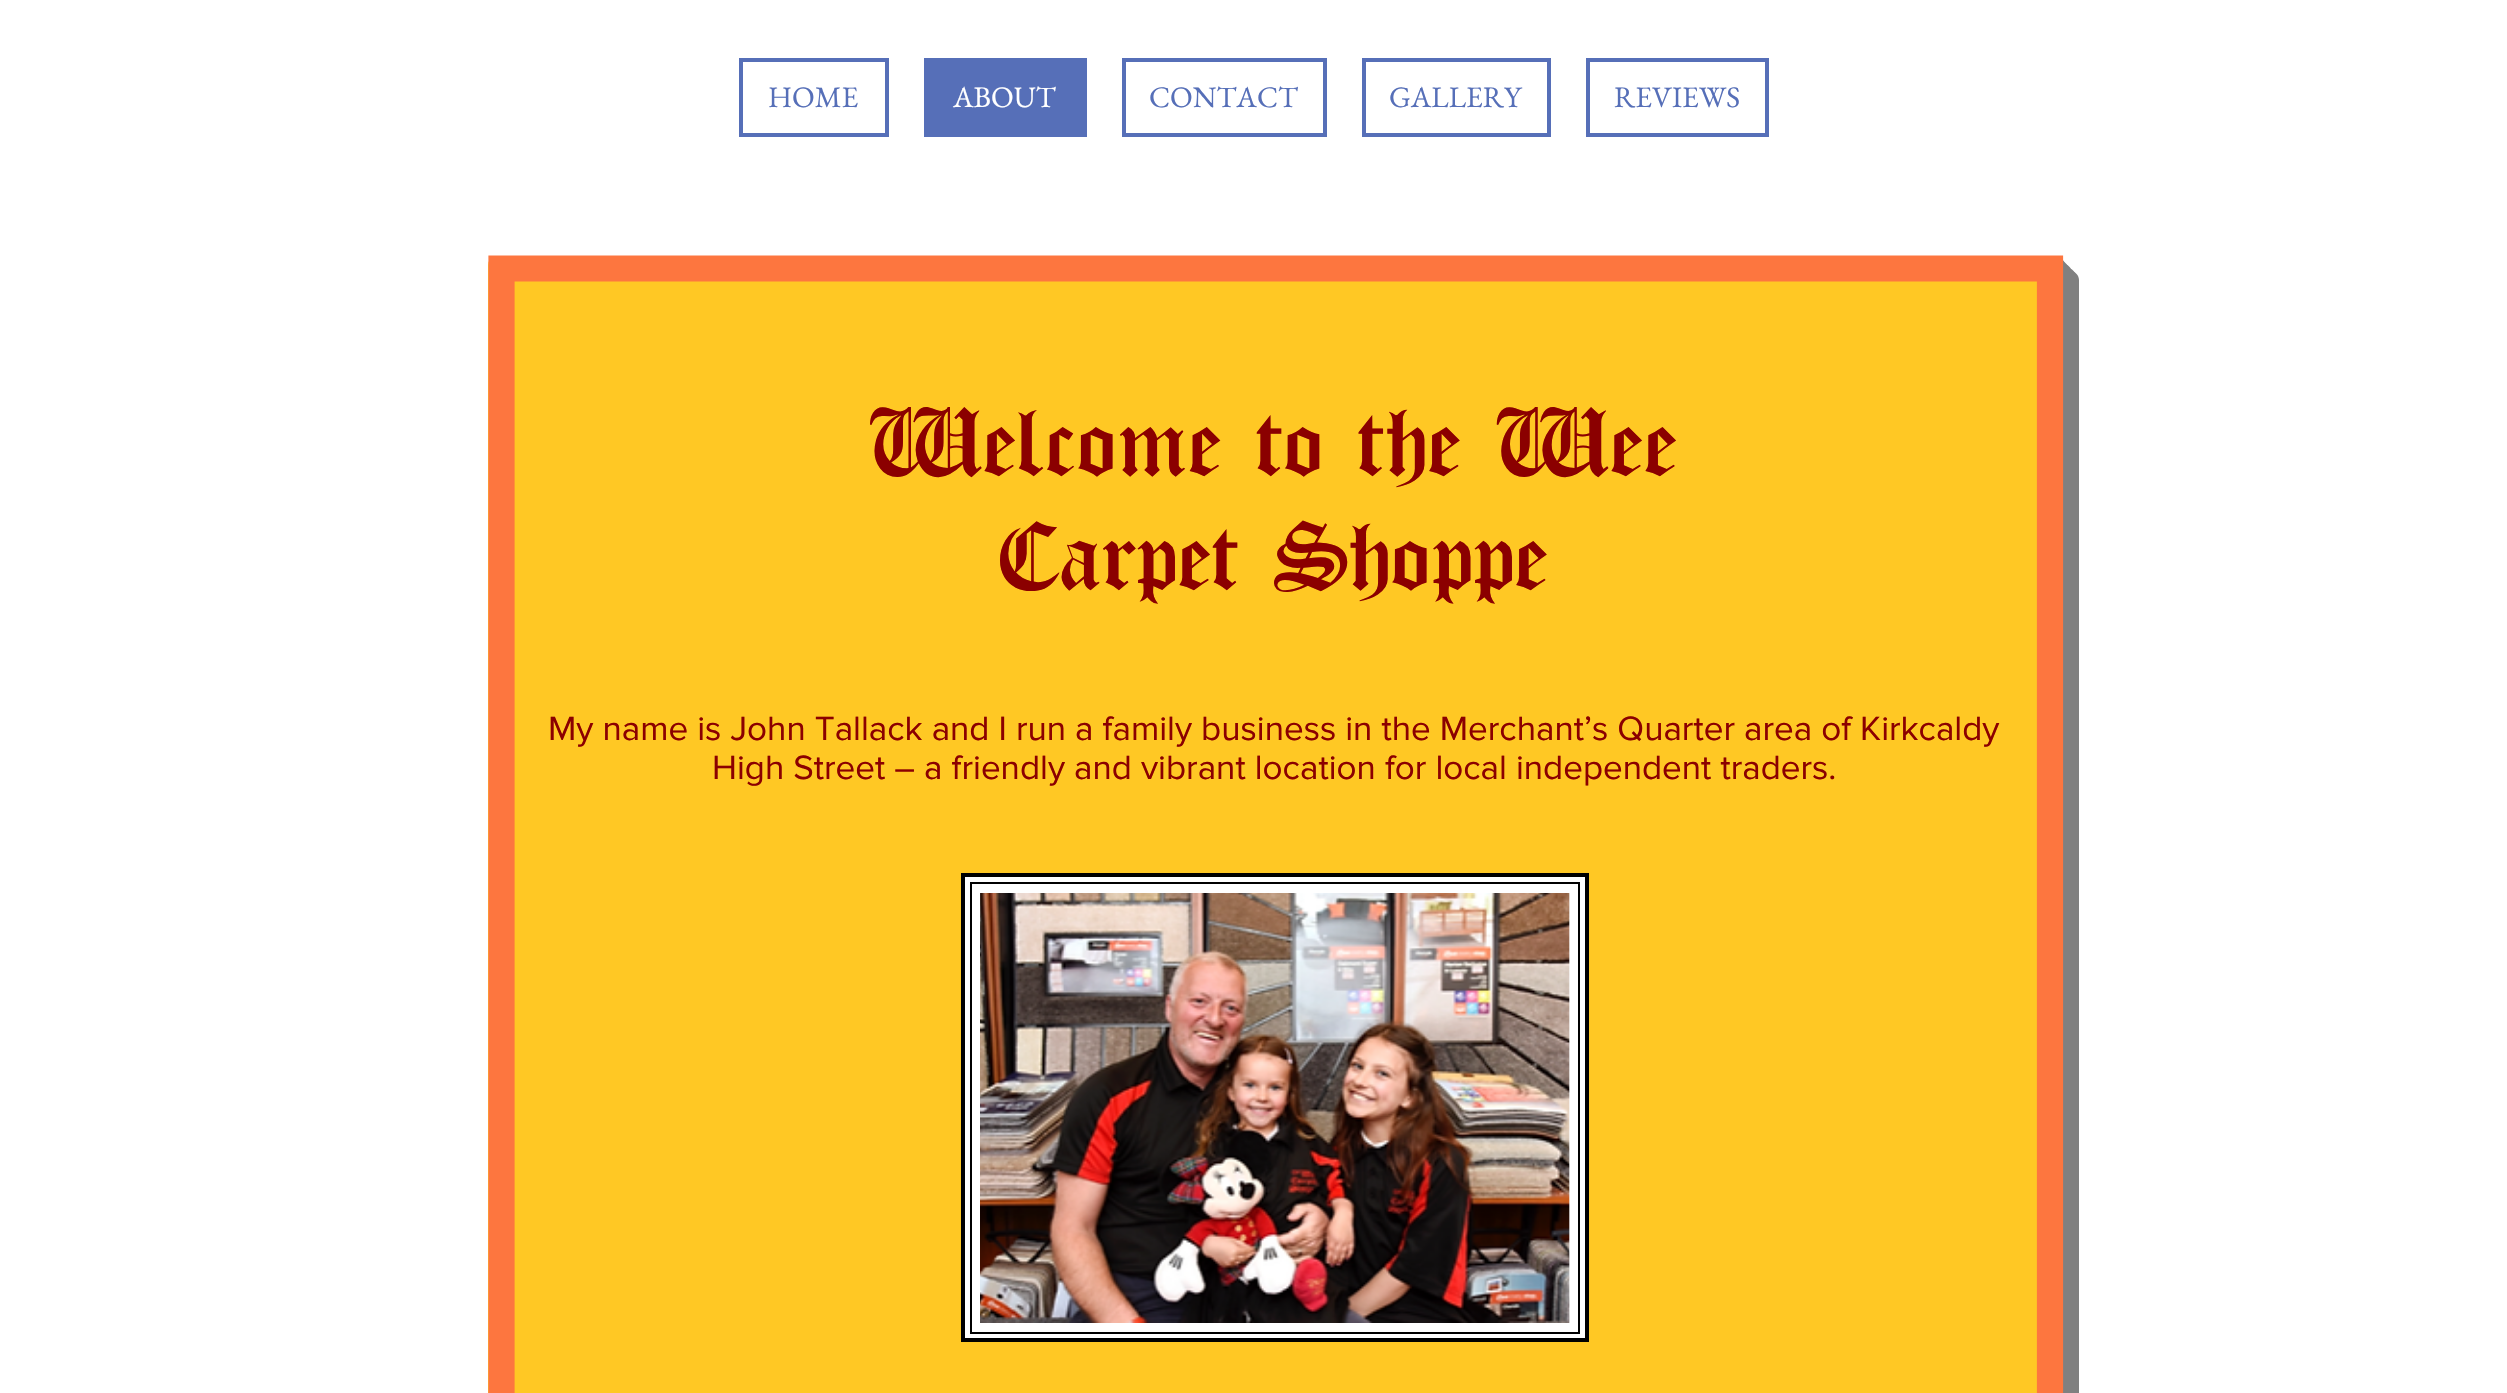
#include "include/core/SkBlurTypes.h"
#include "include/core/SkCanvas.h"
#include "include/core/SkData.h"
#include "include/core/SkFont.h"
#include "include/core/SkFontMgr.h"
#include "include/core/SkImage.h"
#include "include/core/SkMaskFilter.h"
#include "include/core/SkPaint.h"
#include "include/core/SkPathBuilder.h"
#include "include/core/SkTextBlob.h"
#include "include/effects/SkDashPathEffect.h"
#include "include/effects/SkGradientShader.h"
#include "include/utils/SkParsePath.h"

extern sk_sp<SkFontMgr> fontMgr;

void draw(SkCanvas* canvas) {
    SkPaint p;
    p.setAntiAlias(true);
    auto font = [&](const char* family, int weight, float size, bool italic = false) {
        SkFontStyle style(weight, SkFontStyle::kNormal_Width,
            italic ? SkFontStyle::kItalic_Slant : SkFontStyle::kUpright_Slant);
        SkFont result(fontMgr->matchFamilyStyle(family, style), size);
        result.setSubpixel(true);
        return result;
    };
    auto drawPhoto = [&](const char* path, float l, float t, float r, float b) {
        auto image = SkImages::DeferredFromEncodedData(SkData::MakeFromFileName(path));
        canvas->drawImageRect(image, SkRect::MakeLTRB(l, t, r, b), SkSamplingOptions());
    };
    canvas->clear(0xFFFFFFFF);
    p.setStyle(SkPaint::kStroke_Style);
    p.setStrokeWidth(4);
    p.setColor(0xFF566FB8);
    canvas->drawRect(SkRect::MakeLTRB(741, 60, 887, 135), p);
    auto font1 = font("EB Garamond", 400, 29.75f);
    p.setStyle(SkPaint::kFill_Style);
    canvas->drawString("HOME", 768, 107, font1, p);
    canvas->drawRect(SkRect::MakeLTRB(924, 58, 1087, 137), p);
    p.setColor(0xFFFFFFFF);
    canvas->drawString("ABOUT", 953, 107, font1, p);
    p.setStyle(SkPaint::kStroke_Style);
    p.setColor(0xFF566FB8);
    canvas->drawRect(SkRect::MakeLTRB(1124, 60, 1325, 135), p);
    p.setStyle(SkPaint::kFill_Style);
    canvas->drawString("CONTACT", 1149, 107, font1, p);
    p.setStyle(SkPaint::kStroke_Style);
    canvas->drawRect(SkRect::MakeLTRB(1364, 60, 1549, 135), p);
    p.setStyle(SkPaint::kFill_Style);
    canvas->drawString("GALLERY", 1389, 107, font1, p);
    p.setStyle(SkPaint::kStroke_Style);
    canvas->drawRect(SkRect::MakeLTRB(1588, 60, 1767, 135), p);
    p.setStyle(SkPaint::kFill_Style);
    canvas->drawString("REVIEWS", 1614, 107, font1, p);
    p.setColor(0xFF808080);
    canvas->drawPath(SkPathBuilder().moveTo(504, 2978).lineTo(504, 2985).cubicTo(504, 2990, 508, 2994, 513, 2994).lineTo(2070, 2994).cubicTo(2075, 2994, 2079, 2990, 2079, 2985).lineTo(2079, 280).cubicTo(2079, 275, 2075, 271, 2070, 271).lineTo(2063, 271).lineTo(2063, 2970).cubicTo(2063, 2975, 2059, 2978, 2054, 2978).close().detach(), p);
    canvas->drawPath(SkPathBuilder().moveTo(501, 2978).lineTo(501, 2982).cubicTo(501, 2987, 505, 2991, 510, 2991).lineTo(2067, 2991).cubicTo(2072, 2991, 2076, 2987, 2076, 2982).lineTo(2076, 277).cubicTo(2076, 272, 2072, 268, 2067, 268).lineTo(2063, 268).lineTo(2063, 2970).cubicTo(2063, 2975, 2059, 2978, 2054, 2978).close().detach(), p);
    canvas->drawPath(SkPathBuilder().moveTo(497, 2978).cubicTo(497, 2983, 501, 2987, 506, 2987).lineTo(2063, 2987).cubicTo(2068, 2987, 2072, 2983, 2072, 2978).lineTo(2072, 273).cubicTo(2072, 268, 2068, 264, 2063, 264).lineTo(2063, 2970).cubicTo(2063, 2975, 2059, 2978, 2054, 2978).close().detach(), p);
    canvas->drawPath(SkPathBuilder().moveTo(495, 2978).cubicTo(496, 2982, 499, 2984, 503, 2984).lineTo(2060, 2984).cubicTo(2065, 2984, 2069, 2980, 2069, 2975).lineTo(2069, 270).cubicTo(2069, 266, 2066, 263, 2063, 261).lineTo(2063, 264).lineTo(2063, 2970).cubicTo(2063, 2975, 2059, 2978, 2054, 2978).close().detach(), p);
    canvas->drawPath(SkPathBuilder().moveTo(493, 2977).cubicTo(494, 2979, 496, 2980, 499, 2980).lineTo(2056, 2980).cubicTo(2061, 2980, 2065, 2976, 2065, 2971).lineTo(2065, 266).cubicTo(2065, 263, 2064, 260, 2061, 259).cubicTo(2063, 260, 2063, 262, 2063, 264).lineTo(2063, 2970).cubicTo(2063, 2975, 2059, 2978, 2054, 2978).lineTo(497, 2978).cubicTo(495, 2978, 494, 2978, 493, 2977).close().detach(), p);
    p.setColor(0xFFFFC824);
    canvas->drawRoundRect(SkRect::MakeLTRB(488, 256, 2063, 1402), 9, 9, p);
    p.setStyle(SkPaint::kStroke_Style);
    p.setStrokeWidth(26.2f);
    p.setColor(0xFFFD763F);
    canvas->drawPath(SkPathBuilder().moveTo(501.5f, 268.5f).lineTo(2050, 268.5f).lineTo(2050, 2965.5f).lineTo(501.5f, 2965.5f).close().detach(), p);
    auto font2 = font("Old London", 400, 105);
    p.setStyle(SkPaint::kFill_Style);
    p.setColor(0xFF8B0000);
    canvas->drawString("Welcome to the Wee", 870, 476, font2, p);
    canvas->drawString("Carpet Shoppe", 1000, 590, font2, p);
    auto font3 = font("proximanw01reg", 400, 35);
    canvas->drawString("My name is John Tallack and I run a family business in the Merchant’s Quarter area of Kirkcaldy", 548, 740, font3, p);
    canvas->drawString("High Street – a friendly and vibrant location for local independent traders.", 712, 779, font3, p);
    p.setColor(0xFFFFFFFF);
    canvas->drawRect(SkRect::MakeLTRB(963, 875, 1587, 1340), p);
    p.setStyle(SkPaint::kStroke_Style);
    p.setStrokeWidth(4);
    p.setColor(0xFF000000);
    canvas->drawRect(SkRect::MakeLTRB(963, 875, 1587, 1340), p);
    drawPhoto("media/1.png", 980, 893, 1570, 1323);
    p.setStrokeWidth(2);
    canvas->drawRect(SkRect::MakeLTRB(971, 883, 1579, 1333), p);
}
